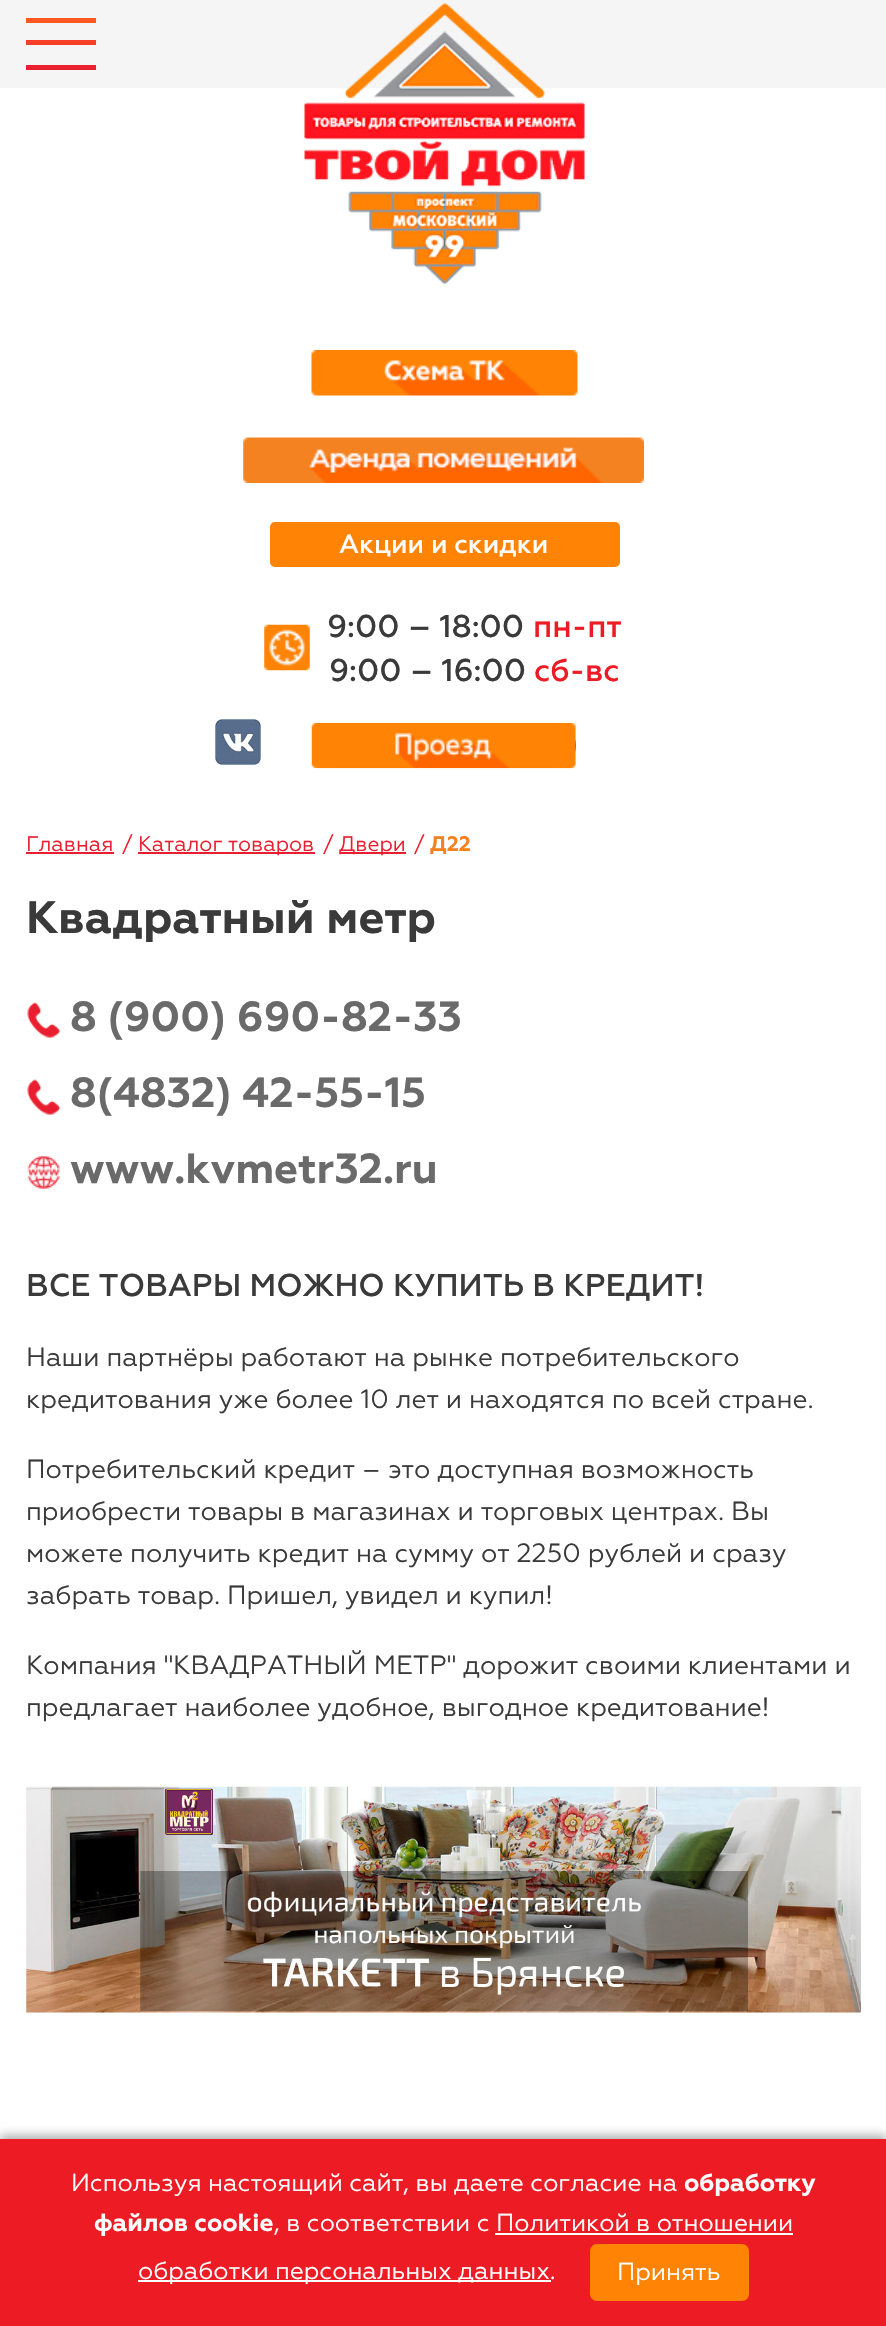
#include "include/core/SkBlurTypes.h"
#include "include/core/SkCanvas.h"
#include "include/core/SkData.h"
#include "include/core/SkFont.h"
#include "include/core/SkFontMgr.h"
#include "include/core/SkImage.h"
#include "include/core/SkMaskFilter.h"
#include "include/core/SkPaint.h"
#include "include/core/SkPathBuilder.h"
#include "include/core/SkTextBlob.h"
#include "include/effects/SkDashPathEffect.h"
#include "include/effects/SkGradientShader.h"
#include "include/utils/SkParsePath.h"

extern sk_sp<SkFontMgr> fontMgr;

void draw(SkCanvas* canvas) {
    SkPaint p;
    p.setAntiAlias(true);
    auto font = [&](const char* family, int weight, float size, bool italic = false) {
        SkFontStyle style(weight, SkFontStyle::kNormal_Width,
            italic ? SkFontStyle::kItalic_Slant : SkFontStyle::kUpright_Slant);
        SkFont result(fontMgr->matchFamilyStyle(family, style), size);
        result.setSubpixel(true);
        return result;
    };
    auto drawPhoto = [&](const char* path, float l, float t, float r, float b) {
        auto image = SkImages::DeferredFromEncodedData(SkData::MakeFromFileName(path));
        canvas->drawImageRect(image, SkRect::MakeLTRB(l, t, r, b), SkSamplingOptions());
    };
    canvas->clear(0xFFFFFFFF);
    {
        const struct { float l, t, r, b; SkColor color; } items[] = {
            {0, 0, 886, 88, 0xFFF5F5F5},
            {26, 18, 96, 23, 0xFFFE5722},
            {26, 65, 96, 70, 0xFFEA1F2F},
            {26, 40, 96, 45, 0xFFF64128},
        };
        for (auto [l, t, r, b, color] : items) {
            p.setColor(color);
            canvas->drawRect(SkRect::MakeLTRB(l, t, r, b), p);
        }
    }
    drawPhoto("media/1.png", 304, 3, 585, 284);
    drawPhoto("media/2.png", 311, 350, 578, 396);
    drawPhoto("media/3.png", 243, 437, 644, 483);
    p.setColor(0xFFFF8304);
    canvas->drawRoundRect(SkRect::MakeLTRB(270, 522, 620, 567), 5, 5, p);
    auto font1 = font("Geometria", 500, 26.25f);
    p.setColor(0xFFFFFFFF);
    canvas->drawString("Акции и скидки", 339, 553, font1, p);
    drawPhoto("media/4.png", 264, 624, 310, 671);
    auto font2 = font("Geometria", 500, 31.5f);
    p.setColor(0xFF3A3A3A);
    canvas->drawString("9:00 – 18:00", 327, 637, font2, p);
    p.setColor(0xFFED1C24);
    canvas->drawString("пн-пт", 533, 637, font2, p);
    p.setColor(0xFF3A3A3A);
    canvas->drawString("9:00 – 16:00", 329, 681, font2, p);
    p.setColor(0xFFED1C24);
    canvas->drawString("сб-вс", 534, 681, font2, p);
    drawPhoto("media/5.png", 215, 719, 261, 765);
    p.setColor(0xFFFF0000);
    canvas->drawRoundRect(SkRect::MakeLTRB(312, 723, 576, 768), 22.5f, 22.5f, p);
    drawPhoto("media/6.png", 311, 722, 576, 769);
    auto font3 = font("Geometria", 400, 21);
    p.setColor(0xFFE91F2F);
    canvas->drawString("Главная", 26, 851, font3, p);
    canvas->drawRect(SkRect::MakeLTRB(26, 852, 114, 854), p);
    canvas->drawString("/", 122, 851, font3, p);
    canvas->drawRect(SkRect::MakeLTRB(138, 852, 315, 854), p);
    canvas->drawString("Каталог товаров", 138, 851, font3, p);
    canvas->drawString("/", 323, 851, font3, p);
    canvas->drawRect(SkRect::MakeLTRB(340, 852, 406, 854), p);
    canvas->drawString("Двери", 339, 851, font3, p);
    canvas->drawString("/", 414, 851, font3, p);
    auto font4 = font("Geometria", 700, 21);
    p.setColor(0xFFF58220);
    canvas->drawString("Д22", 430, 851, font4, p);
    auto font5 = font("Geometria", 700, 45.5f);
    p.setColor(0xFF3A3A3A);
    canvas->drawString("Квадратный метр", 26, 933, font5, p);
    drawPhoto("media/7.png", 27, 1002, 61, 1038);
    auto font6 = font("Geometria", 700, 42);
    p.setColor(0xFF6A6A6A);
    canvas->drawString("8 (900) 690-82-33", 70, 1031, font6, p);
    drawPhoto("media/7.png", 27, 1079, 61, 1115);
    canvas->drawString("8(4832) 42-55-15", 70, 1107, font6, p);
    drawPhoto("media/8.png", 27, 1156, 61, 1189);
    canvas->drawString("www.kvmetr32.ru", 70, 1183, font6, p);
    p.setColor(0xFF3A3A3A);
    canvas->drawString("ВСЕ ТОВАРЫ МОЖНО КУПИТЬ В КРЕДИТ!", 26, 1296, font2, p);
    auto font7 = font("Geometria", 400, 26.25f);
    {
        const struct { const char* s; float x, y; } items[] = {
            {"Наши партнёры работают на рынке потребительского", 26, 1366},
            {"кредитования уже более 10 лет и находятся по всей стране.", 26, 1408},
            {"Потребительский кредит – это доступная возможность", 26, 1478},
            {"приобрести товары в магазинах и торговых центрах. Вы", 26, 1520},
            {"можете получить кредит на сумму от 2250 рублей и сразу", 26, 1562},
            {"забрать товар. Пришел, увидел и купил!", 26, 1604},
            {"Компания \"КВАДРАТНЫЙ МЕТР\" дорожит своими клиентами и", 26, 1674},
            {"предлагает наиболее удобное, выгодное кредитование!", 26, 1716},
        };
        for (auto [s, x, y] : items) {
            canvas->drawString(s, x, y, font7, p);
        }
    }
    drawPhoto("media/9.png", 26, 1786, 861, 2013);
    p.setColor(0x4D000000);
    p.setMaskFilter(SkMaskFilter::MakeBlur(kNormal_SkBlurStyle, 4.5f));
    canvas->drawRect(SkRect::MakeLTRB(0, 2135, 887, 2324), p);
    p.setMaskFilter(nullptr);
    p.setColor(0xFFED1C24);
    canvas->drawRect(SkRect::MakeLTRB(0, 2139, 886, 2326), p);
    auto font8 = font("Geometria", 400, 24.5f);
    p.setColor(0xFFFFFFFF);
    canvas->drawString("Используя настоящий сайт, вы даете согласие на", 71, 2191, font8, p);
    auto font9 = font("Geometria", 700, 24.5f);
    canvas->drawString("обработку", 684, 2191, font9, p);
    canvas->drawString("файлов сookie", 94, 2231, font9, p);
    canvas->drawString(", в соответствии с Политикой в отношении", 274, 2231, font8, p);
    canvas->drawRect(SkRect::MakeLTRB(495, 2233, 793, 2235), p);
    canvas->drawRect(SkRect::MakeLTRB(138, 2280, 551, 2282), p);
    canvas->drawString("обработки персональных данных.", 138, 2279, font8, p);
    p.setColor(0xFFFF8304);
    canvas->drawRoundRect(SkRect::MakeLTRB(590, 2244, 749, 2301), 7, 7, p);
    p.setColor(0xFFFFFFFF);
    canvas->drawString("Принять", 617, 2280, font8, p);
}
